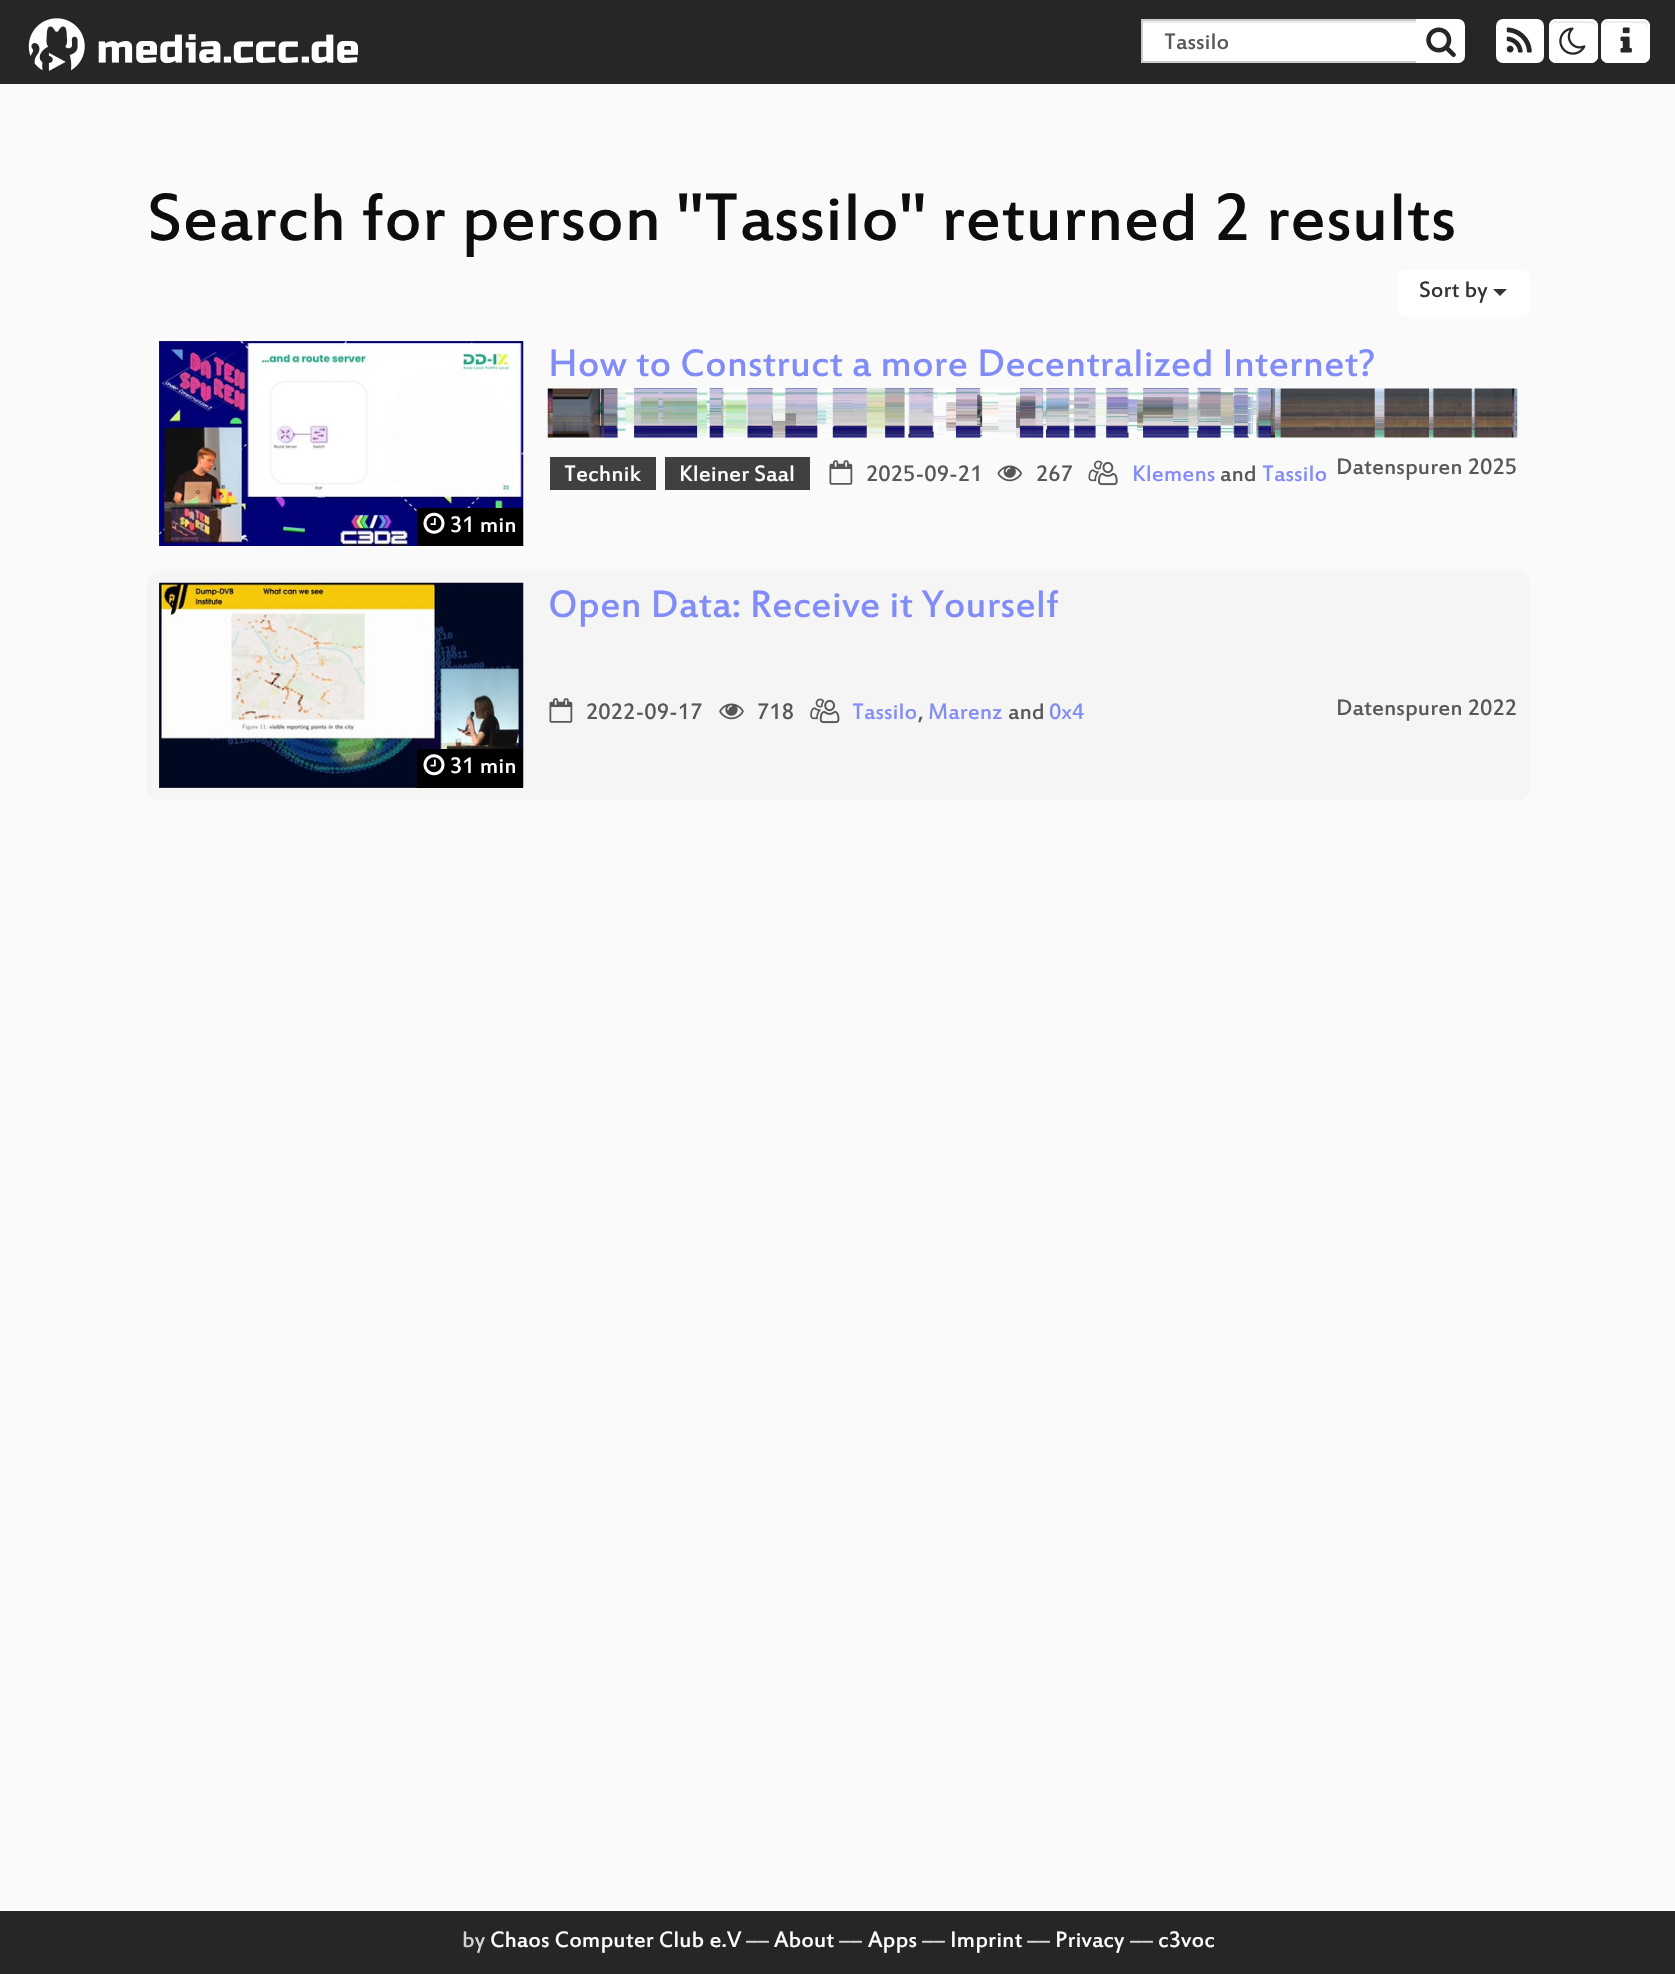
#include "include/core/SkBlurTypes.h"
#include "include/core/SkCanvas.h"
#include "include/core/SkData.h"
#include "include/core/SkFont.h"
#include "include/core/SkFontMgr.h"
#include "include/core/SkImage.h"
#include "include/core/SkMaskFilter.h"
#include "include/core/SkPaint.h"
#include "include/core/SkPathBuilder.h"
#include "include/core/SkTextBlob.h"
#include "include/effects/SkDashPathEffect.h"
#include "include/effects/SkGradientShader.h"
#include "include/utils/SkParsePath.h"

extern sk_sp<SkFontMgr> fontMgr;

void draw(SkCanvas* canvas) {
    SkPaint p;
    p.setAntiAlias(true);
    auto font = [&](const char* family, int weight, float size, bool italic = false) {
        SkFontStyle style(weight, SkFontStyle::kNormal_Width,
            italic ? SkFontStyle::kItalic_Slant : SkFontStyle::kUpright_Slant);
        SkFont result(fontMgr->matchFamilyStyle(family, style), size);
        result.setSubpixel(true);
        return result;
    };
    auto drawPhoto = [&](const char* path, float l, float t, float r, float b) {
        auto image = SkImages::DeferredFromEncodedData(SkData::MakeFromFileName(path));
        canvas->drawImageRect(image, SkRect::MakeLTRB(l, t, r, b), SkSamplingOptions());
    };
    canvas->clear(0xFFFAFAFA);
    p.setColor(0xFF262626);
    canvas->drawRect(SkRect::MakeLTRB(0, 0, 1675, 84), p);
    drawPhoto("media/1.png", 28, 18, 358, 71);
    p.setColor(0xFFFFFFFF);
    canvas->drawRect(SkRect::MakeLTRB(1143, 23, 1416, 61), p);
    p.setColor(0xFFECECEC);
    canvas->drawRect(SkRect::MakeLTRB(1143, 21, 1416, 23), p);
    p.setStyle(SkPaint::kStroke_Style);
    p.setStrokeWidth(2);
    p.setColor(0xFFCCCCCC);
    canvas->drawRect(SkRect::MakeLTRB(1142, 20, 1417, 62), p);
    auto font1 = font("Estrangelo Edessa", 400, 24.5f);
    p.setStyle(SkPaint::kFill_Style);
    p.setColor(0xFF585858);
    canvas->drawString("Tassilo", 1164, 49, font1, p);
    p.setColor(0xFFFFFFFF);
    canvas->drawPath(SkPathBuilder().moveTo(1417, 20).lineTo(1458, 20).cubicTo(1461.5f, 20, 1464, 22.5f, 1464, 26).lineTo(1464, 56).cubicTo(1464, 59.5f, 1461.5f, 62, 1458, 62).lineTo(1417, 62).close().detach(), p);
    p.setStyle(SkPaint::kStroke_Style);
    canvas->drawPath(SkPathBuilder().moveTo(1417, 20).lineTo(1458, 20).cubicTo(1461.5f, 20, 1464, 22.5f, 1464, 26).lineTo(1464, 56).cubicTo(1464, 59.5f, 1461.5f, 62, 1458, 62).lineTo(1417, 62).close().detach(), p);
    drawPhoto("media/2.png", 1426, 27, 1456, 57);
    p.setStyle(SkPaint::kFill_Style);
    canvas->drawRoundRect(SkRect::MakeLTRB(1497, 20, 1543, 62), 6, 6, p);
    p.setStyle(SkPaint::kStroke_Style);
    canvas->drawRoundRect(SkRect::MakeLTRB(1497, 20, 1543, 62), 6, 6, p);
    drawPhoto("media/3.png", 1506, 27, 1532, 53);
    p.setStyle(SkPaint::kFill_Style);
    canvas->drawRoundRect(SkRect::MakeLTRB(1549, 19, 1598, 63), 7, 7, p);
    p.setColor(0xFFECECEC);
    canvas->drawPath(SkPathBuilder().moveTo(1556, 23).lineTo(1585, 23).cubicTo(1593, 23, 1596, 24, 1596, 28).lineTo(1596, 26).cubicTo(1596, 23, 1594, 21, 1591, 21).lineTo(1556, 21).cubicTo(1553, 21, 1551, 23, 1551, 26).cubicTo(1552, 24, 1553, 23, 1556, 23).close().detach(), p);
    p.setStyle(SkPaint::kStroke_Style);
    p.setColor(0xFFFFFFFF);
    canvas->drawRoundRect(SkRect::MakeLTRB(1550, 20, 1597, 62), 6, 6, p);
    drawPhoto("media/4.png", 1559, 27, 1586, 55);
    p.setStyle(SkPaint::kFill_Style);
    canvas->drawRoundRect(SkRect::MakeLTRB(1601, 19, 1650, 63), 7, 7, p);
    p.setColor(0xFFECECEC);
    canvas->drawPath(SkPathBuilder(SkPathFillType::kEvenOdd).moveTo(1608, 23).cubicTo(1614, 23, 1644, 22, 1647, 25).lineTo(1648, 27).lineTo(1648, 59).cubicTo(1650, 57, 1649, 53, 1649, 51).lineTo(1649, 41).cubicTo(1649, 17, 1651, 21, 1626, 21).lineTo(1614, 21).cubicTo(1607, 21, 1603, 20, 1603, 28).cubicTo(1603, 25, 1604, 23, 1608, 23).close().moveTo(1603, 57).lineTo(1603, 53).close().detach(), p);
    p.setStyle(SkPaint::kStroke_Style);
    p.setColor(0xFFFFFFFF);
    canvas->drawRoundRect(SkRect::MakeLTRB(1602, 20, 1649, 62), 6, 6, p);
    drawPhoto("media/5.png", 1620, 27, 1632, 53);
    auto font2 = font("Estrangelo Edessa", 400, 73.5f);
    p.setStyle(SkPaint::kFill_Style);
    p.setColor(0xFF0D0D0D);
    canvas->drawString("Search for person \"Tassilo\" returned 2 results", 147, 240, font2, p);
    p.setColor(0xFFFFFFFF);
    canvas->drawRoundRect(SkRect::MakeLTRB(1397, 270, 1530, 317), 7, 7, p);
    p.setColor(0xFF333333);
    canvas->drawString("Sort by", 1419, 297, font1, p);
    canvas->drawPath(SkPathBuilder().moveTo(1493, 289).lineTo(1507, 289).lineTo(1500, 296).close().detach(), p);
    auto font3 = font("Estrangelo Edessa", 400, 42);
    p.setColor(0xFF818CF8);
    canvas->drawString("How to Construct a more Decentralized Internet?", 548, 376, font3, p);
    drawPhoto("media/6.png", 547, 388, 1518, 438);
    p.setColor(0xFF404040);
    canvas->drawRect(SkRect::MakeLTRB(550, 457, 656, 490), p);
    p.setColor(0xFFFFFFFF);
    canvas->drawString("Technik", 564, 481, font1, p);
    p.setColor(0xFF404040);
    canvas->drawRect(SkRect::MakeLTRB(665, 457, 810, 490), p);
    p.setColor(0xFFFFFFFF);
    canvas->drawString("Kleiner Saal", 679, 481, font1, p);
    drawPhoto("media/7.png", 829, 460, 853, 485);
    p.setColor(0xFF585858);
    canvas->drawString("2025-09-21", 866, 481, font1, p);
    drawPhoto("media/8.png", 997, 465, 1022, 482);
    canvas->drawString("267", 1036, 481, font1, p);
    drawPhoto("media/9.png", 1088, 460, 1118, 486);
    p.setColor(0xFF818CF8);
    canvas->drawString("Klemens", 1132, 481, font1, p);
    p.setColor(0xFF585858);
    canvas->drawString("and", 1220, 481, font1, p);
    p.setColor(0xFF818CF8);
    canvas->drawString("Tassilo", 1262, 481, font1, p);
    p.setColor(0xFF585858);
    canvas->drawString("Datenspuren 2025", 1336, 474, font1, p);
    p.setColor(0xFF404040);
    canvas->drawRect(SkRect::MakeLTRB(159, 341, 523, 546), p);
    drawPhoto("media/10.png", 159, 341, 524, 546);
    p.setColor(0xFF000000);
    canvas->drawRect(SkRect::MakeLTRB(417, 508, 523, 546), p);
    drawPhoto("media/11.png", 423, 512, 445, 534);
    p.setColor(0xFFFFFFFF);
    canvas->drawString("31 min", 450, 532, font1, p);
    p.setColor(0xFFF5F5F5);
    canvas->drawRoundRect(SkRect::MakeLTRB(147, 571, 1530, 800), 12, 12, p);
    p.setColor(0xFF818CF8);
    canvas->drawString("Open Data: Receive it Yourself", 548, 617, font3, p);
    drawPhoto("media/12.png", 549, 698, 573, 723);
    p.setColor(0xFF585858);
    canvas->drawString("2022-09-17", 586, 719, font1, p);
    drawPhoto("media/13.png", 719, 703, 744, 720);
    canvas->drawString("718", 757, 719, font1, p);
    drawPhoto("media/14.png", 810, 698, 840, 724);
    p.setColor(0xFF818CF8);
    canvas->drawString("Tassilo", 852, 719, font1, p);
    p.setColor(0xFF585858);
    canvas->drawString(",", 918, 719, font1, p);
    p.setColor(0xFF818CF8);
    canvas->drawString("Marenz", 928, 719, font1, p);
    p.setColor(0xFF585858);
    canvas->drawString("and", 1008, 719, font1, p);
    p.setColor(0xFF818CF8);
    canvas->drawString("0x4", 1049, 719, font1, p);
    p.setColor(0xFF585858);
    canvas->drawString("Datenspuren 2022", 1336, 715, font1, p);
    p.setColor(0xFF404040);
    canvas->drawRect(SkRect::MakeLTRB(159, 583, 417, 788), p);
    drawPhoto("media/15.png", 159, 582, 524, 788);
    p.setColor(0xFF000000);
    canvas->drawRect(SkRect::MakeLTRB(417, 749, 523, 788), p);
    drawPhoto("media/16.png", 423, 754, 445, 776);
    p.setColor(0xFFFFFFFF);
    canvas->drawString("31 min", 450, 773, font1, p);
    p.setColor(0xFF262626);
    canvas->drawRect(SkRect::MakeLTRB(0, 1911, 1675, 1974), p);
    p.setColor(0xFFD4D4D4);
    canvas->drawString("by", 462, 1947, font1, p);
    p.setColor(0xFFFFFFFF);
    canvas->drawString("Chaos Computer Club e.V", 490, 1947, font1, p);
    p.setColor(0xFFD4D4D4);
    canvas->drawString("––", 746, 1947, font1, p);
    p.setColor(0xFFFFFFFF);
    canvas->drawString("About", 774, 1947, font1, p);
    p.setColor(0xFFD4D4D4);
    canvas->drawString("––", 839, 1947, font1, p);
    p.setColor(0xFFFFFFFF);
    canvas->drawString("Apps", 868, 1947, font1, p);
    p.setColor(0xFFD4D4D4);
    canvas->drawString("––", 922, 1947, font1, p);
    p.setColor(0xFFFFFFFF);
    canvas->drawString("Imprint", 950, 1947, font1, p);
    p.setColor(0xFFD4D4D4);
    canvas->drawString("––", 1027, 1947, font1, p);
    p.setColor(0xFFFFFFFF);
    canvas->drawString("Privacy", 1055, 1947, font1, p);
    p.setColor(0xFFD4D4D4);
    canvas->drawString("––", 1130, 1947, font1, p);
    p.setColor(0xFFFFFFFF);
    canvas->drawString("c3voc", 1158, 1947, font1, p);
}
